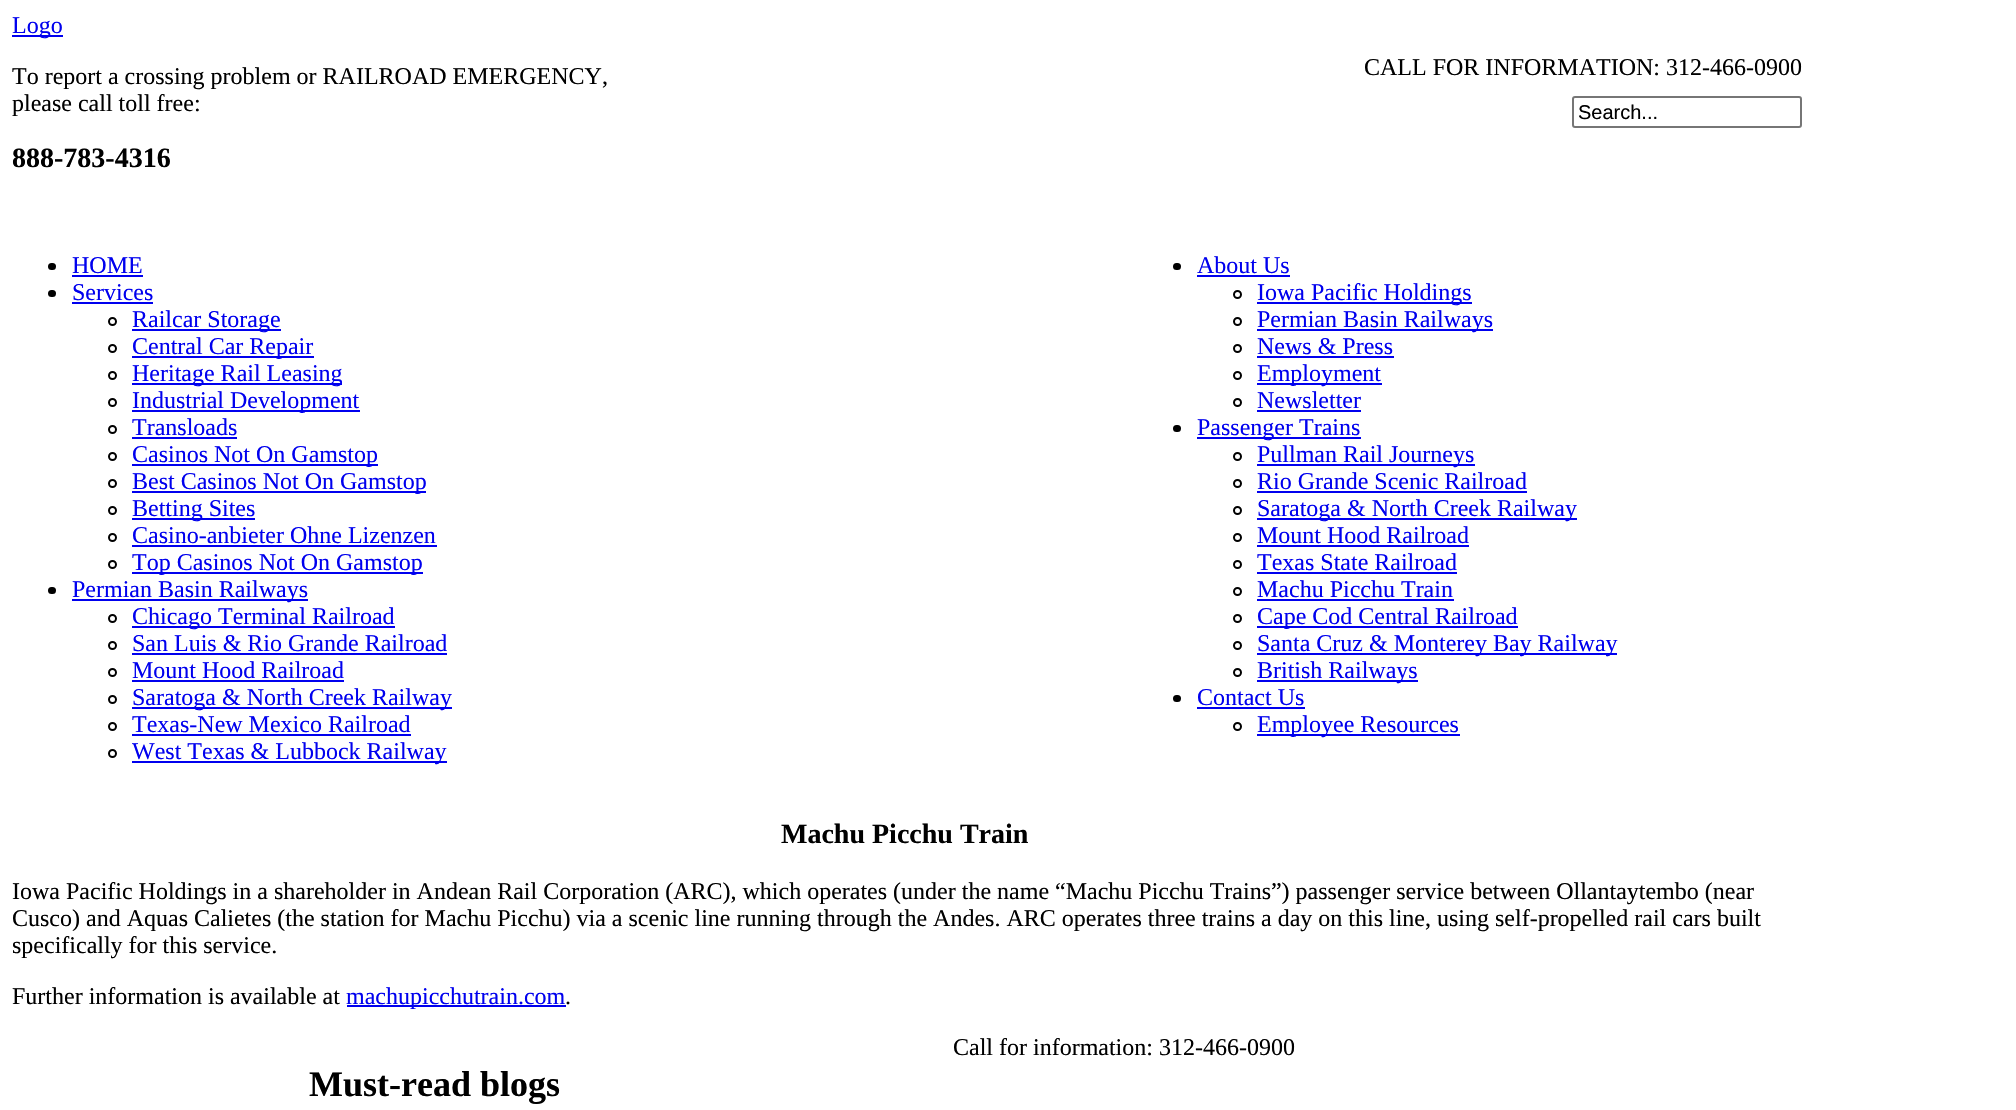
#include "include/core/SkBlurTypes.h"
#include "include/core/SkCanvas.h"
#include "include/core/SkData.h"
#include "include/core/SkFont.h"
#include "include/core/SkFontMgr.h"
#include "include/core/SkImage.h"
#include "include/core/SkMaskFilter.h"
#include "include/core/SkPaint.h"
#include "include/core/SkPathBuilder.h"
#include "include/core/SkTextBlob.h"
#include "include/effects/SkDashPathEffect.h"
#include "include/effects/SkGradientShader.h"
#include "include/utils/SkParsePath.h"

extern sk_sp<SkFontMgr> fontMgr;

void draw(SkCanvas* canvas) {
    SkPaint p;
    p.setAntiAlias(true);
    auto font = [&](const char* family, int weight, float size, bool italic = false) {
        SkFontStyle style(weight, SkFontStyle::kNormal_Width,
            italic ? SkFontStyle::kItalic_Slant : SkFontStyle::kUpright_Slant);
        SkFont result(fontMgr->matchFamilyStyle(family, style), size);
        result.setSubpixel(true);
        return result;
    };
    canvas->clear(0xFFFFFFFF);
    p.setColor(0xFF0000EE);
    canvas->drawRect(SkRect::MakeLTRB(12, 35, 63, 37), p);
    auto font1 = font("Liberation Serif", 400, 24);
    canvas->drawString("Logo", 12, 33, font1, p);
    p.setColor(0xFF000000);
    canvas->drawString("To report a crossing problem or RAILROAD EMERGENCY,", 12, 84, font1, p);
    canvas->drawString("please call toll free:", 12, 111, font1, p);
    auto font2 = font("Liberation Serif", 700, 28);
    canvas->drawString("888-783-4316", 12, 167, font2, p);
    canvas->drawString("CALL FOR INFORMATION: 312-466-0900", 1364, 75, font1, p);
    p.setStyle(SkPaint::kStroke_Style);
    p.setStrokeWidth(2);
    p.setColor(0xFF767676);
    canvas->drawRoundRect(SkRect::MakeLTRB(1573, 97, 1801, 127), 2, 2, p);
    auto font3 = font("Liberation Sans", 400, 20);
    p.setStyle(SkPaint::kFill_Style);
    p.setColor(0xFF000000);
    canvas->drawString("Search...", 1578, 119, font3, p);
    canvas->drawRoundRect(SkRect::MakeLTRB(48, 263, 56, 270), 3.5f, 3.5f, p);
    p.setColor(0xFF0000EE);
    canvas->drawString("HOME", 72, 273, font1, p);
    canvas->drawRect(SkRect::MakeLTRB(72, 275, 143, 277), p);
    p.setColor(0xFF000000);
    canvas->drawRoundRect(SkRect::MakeLTRB(48, 290, 56, 297), 3.5f, 3.5f, p);
    p.setColor(0xFF0000EE);
    canvas->drawString("Services", 72, 300, font1, p);
    canvas->drawRect(SkRect::MakeLTRB(72, 302, 153, 304), p);
    p.setStyle(SkPaint::kStroke_Style);
    p.setColor(0xFF000000);
    canvas->drawCircle(112.5f, 321.5f, 3.5f, p);
    p.setStyle(SkPaint::kFill_Style);
    p.setColor(0xFF0000EE);
    canvas->drawRect(SkRect::MakeLTRB(132, 329, 281, 331), p);
    canvas->drawString("Railcar Storage", 132, 327, font1, p);
    p.setStyle(SkPaint::kStroke_Style);
    p.setColor(0xFF000000);
    canvas->drawCircle(112.5f, 348.5f, 3.5f, p);
    p.setStyle(SkPaint::kFill_Style);
    p.setColor(0xFF0000EE);
    canvas->drawRect(SkRect::MakeLTRB(132, 356, 314, 358), p);
    canvas->drawString("Central Car Repair", 132, 354, font1, p);
    p.setStyle(SkPaint::kStroke_Style);
    p.setColor(0xFF000000);
    canvas->drawCircle(112.5f, 375.5f, 3.5f, p);
    p.setStyle(SkPaint::kFill_Style);
    p.setColor(0xFF0000EE);
    canvas->drawRect(SkRect::MakeLTRB(132, 383, 342, 385), p);
    canvas->drawString("Heritage Rail Leasing", 132, 381, font1, p);
    p.setStyle(SkPaint::kStroke_Style);
    p.setColor(0xFF000000);
    canvas->drawCircle(112.5f, 402.5f, 3.5f, p);
    p.setStyle(SkPaint::kFill_Style);
    p.setColor(0xFF0000EE);
    canvas->drawRect(SkRect::MakeLTRB(132, 410, 360, 412), p);
    canvas->drawString("Industrial Development", 132, 408, font1, p);
    p.setStyle(SkPaint::kStroke_Style);
    p.setColor(0xFF000000);
    canvas->drawCircle(112.5f, 429.5f, 3.5f, p);
    p.setStyle(SkPaint::kFill_Style);
    p.setColor(0xFF0000EE);
    canvas->drawString("Transloads", 132, 435, font1, p);
    canvas->drawRect(SkRect::MakeLTRB(132, 437, 237, 439), p);
    p.setStyle(SkPaint::kStroke_Style);
    p.setColor(0xFF000000);
    canvas->drawCircle(112.5f, 456.5f, 3.5f, p);
    p.setStyle(SkPaint::kFill_Style);
    p.setColor(0xFF0000EE);
    canvas->drawRect(SkRect::MakeLTRB(132, 464, 378, 466), p);
    canvas->drawString("Casinos Not On Gamstop", 132, 462, font1, p);
    p.setStyle(SkPaint::kStroke_Style);
    p.setColor(0xFF000000);
    canvas->drawCircle(112.5f, 483.5f, 3.5f, p);
    p.setStyle(SkPaint::kFill_Style);
    p.setColor(0xFF0000EE);
    canvas->drawRect(SkRect::MakeLTRB(132, 491, 426, 493), p);
    canvas->drawString("Best Casinos Not On Gamstop", 132, 489, font1, p);
    p.setStyle(SkPaint::kStroke_Style);
    p.setColor(0xFF000000);
    canvas->drawCircle(112.5f, 510.5f, 3.5f, p);
    p.setStyle(SkPaint::kFill_Style);
    p.setColor(0xFF0000EE);
    canvas->drawRect(SkRect::MakeLTRB(132, 518, 255, 520), p);
    canvas->drawString("Betting Sites", 132, 516, font1, p);
    p.setStyle(SkPaint::kStroke_Style);
    p.setColor(0xFF000000);
    canvas->drawCircle(112.5f, 537.5f, 3.5f, p);
    p.setStyle(SkPaint::kFill_Style);
    p.setColor(0xFF0000EE);
    canvas->drawString("Casino-anbieter Ohne Lizenzen", 132, 543, font1, p);
    canvas->drawRect(SkRect::MakeLTRB(132, 545, 437, 547), p);
    p.setStyle(SkPaint::kStroke_Style);
    p.setColor(0xFF000000);
    canvas->drawCircle(112.5f, 564.5f, 3.5f, p);
    p.setStyle(SkPaint::kFill_Style);
    p.setColor(0xFF0000EE);
    canvas->drawRect(SkRect::MakeLTRB(132, 572, 423, 574), p);
    canvas->drawString("Top Casinos Not On Gamstop", 132, 570, font1, p);
    p.setColor(0xFF000000);
    canvas->drawRoundRect(SkRect::MakeLTRB(48, 587, 56, 594), 3.5f, 3.5f, p);
    p.setColor(0xFF0000EE);
    canvas->drawRect(SkRect::MakeLTRB(72, 599, 308, 601), p);
    canvas->drawString("Permian Basin Railways", 72, 597, font1, p);
    p.setStyle(SkPaint::kStroke_Style);
    p.setColor(0xFF000000);
    canvas->drawCircle(112.5f, 618.5f, 3.5f, p);
    p.setStyle(SkPaint::kFill_Style);
    p.setColor(0xFF0000EE);
    canvas->drawRect(SkRect::MakeLTRB(132, 626, 395, 628), p);
    canvas->drawString("Chicago Terminal Railroad", 132, 624, font1, p);
    p.setStyle(SkPaint::kStroke_Style);
    p.setColor(0xFF000000);
    canvas->drawCircle(112.5f, 645.5f, 3.5f, p);
    p.setStyle(SkPaint::kFill_Style);
    p.setColor(0xFF0000EE);
    canvas->drawString("San Luis & Rio Grande Railroad", 132, 651, font1, p);
    canvas->drawRect(SkRect::MakeLTRB(132, 653, 447, 655), p);
    p.setStyle(SkPaint::kStroke_Style);
    p.setColor(0xFF000000);
    canvas->drawCircle(112.5f, 672.5f, 3.5f, p);
    p.setStyle(SkPaint::kFill_Style);
    p.setColor(0xFF0000EE);
    canvas->drawString("Mount Hood Railroad", 132, 678, font1, p);
    canvas->drawRect(SkRect::MakeLTRB(132, 680, 344, 682), p);
    p.setStyle(SkPaint::kStroke_Style);
    p.setColor(0xFF000000);
    canvas->drawCircle(112.5f, 699.5f, 3.5f, p);
    p.setStyle(SkPaint::kFill_Style);
    p.setColor(0xFF0000EE);
    canvas->drawRect(SkRect::MakeLTRB(132, 707, 452, 709), p);
    canvas->drawString("Saratoga & North Creek Railway", 132, 705, font1, p);
    p.setStyle(SkPaint::kStroke_Style);
    p.setColor(0xFF000000);
    canvas->drawCircle(112.5f, 726.5f, 3.5f, p);
    p.setStyle(SkPaint::kFill_Style);
    p.setColor(0xFF0000EE);
    canvas->drawString("Texas-New Mexico Railroad", 132, 732, font1, p);
    canvas->drawRect(SkRect::MakeLTRB(132, 734, 411, 736), p);
    p.setStyle(SkPaint::kStroke_Style);
    p.setColor(0xFF000000);
    canvas->drawCircle(112.5f, 753.5f, 3.5f, p);
    p.setStyle(SkPaint::kFill_Style);
    p.setColor(0xFF0000EE);
    canvas->drawRect(SkRect::MakeLTRB(132, 761, 447, 763), p);
    canvas->drawString("West Texas & Lubbock Railway", 132, 759, font1, p);
    p.setColor(0xFF000000);
    canvas->drawRoundRect(SkRect::MakeLTRB(1173, 263, 1181, 270), 3.5f, 3.5f, p);
    p.setColor(0xFF0000EE);
    canvas->drawString("About Us", 1197, 273, font1, p);
    canvas->drawRect(SkRect::MakeLTRB(1197, 275, 1290, 277), p);
    p.setStyle(SkPaint::kStroke_Style);
    p.setColor(0xFF000000);
    canvas->drawCircle(1237.5f, 294.5f, 3.5f, p);
    p.setStyle(SkPaint::kFill_Style);
    p.setColor(0xFF0000EE);
    canvas->drawRect(SkRect::MakeLTRB(1257, 302, 1472, 304), p);
    canvas->drawString("Iowa Pacific Holdings", 1257, 300, font1, p);
    p.setStyle(SkPaint::kStroke_Style);
    p.setColor(0xFF000000);
    canvas->drawCircle(1237.5f, 321.5f, 3.5f, p);
    p.setStyle(SkPaint::kFill_Style);
    p.setColor(0xFF0000EE);
    canvas->drawRect(SkRect::MakeLTRB(1257, 329, 1493, 331), p);
    canvas->drawString("Permian Basin Railways", 1257, 327, font1, p);
    p.setStyle(SkPaint::kStroke_Style);
    p.setColor(0xFF000000);
    canvas->drawCircle(1237.5f, 348.5f, 3.5f, p);
    p.setStyle(SkPaint::kFill_Style);
    p.setColor(0xFF0000EE);
    canvas->drawString("News & Press", 1257, 354, font1, p);
    canvas->drawRect(SkRect::MakeLTRB(1257, 356, 1394, 358), p);
    p.setStyle(SkPaint::kStroke_Style);
    p.setColor(0xFF000000);
    canvas->drawCircle(1237.5f, 375.5f, 3.5f, p);
    p.setStyle(SkPaint::kFill_Style);
    p.setColor(0xFF0000EE);
    canvas->drawRect(SkRect::MakeLTRB(1257, 383, 1382, 385), p);
    canvas->drawString("Employment", 1257, 381, font1, p);
    p.setStyle(SkPaint::kStroke_Style);
    p.setColor(0xFF000000);
    canvas->drawCircle(1237.5f, 402.5f, 3.5f, p);
    p.setStyle(SkPaint::kFill_Style);
    p.setColor(0xFF0000EE);
    canvas->drawString("Newsletter", 1257, 408, font1, p);
    canvas->drawRect(SkRect::MakeLTRB(1257, 410, 1361, 412), p);
    p.setColor(0xFF000000);
    canvas->drawRoundRect(SkRect::MakeLTRB(1173, 425, 1181, 432), 3.5f, 3.5f, p);
    p.setColor(0xFF0000EE);
    canvas->drawRect(SkRect::MakeLTRB(1197, 437, 1361, 439), p);
    canvas->drawString("Passenger Trains", 1197, 435, font1, p);
    p.setStyle(SkPaint::kStroke_Style);
    p.setColor(0xFF000000);
    canvas->drawCircle(1237.5f, 456.5f, 3.5f, p);
    p.setStyle(SkPaint::kFill_Style);
    p.setColor(0xFF0000EE);
    canvas->drawRect(SkRect::MakeLTRB(1257, 464, 1475, 466), p);
    canvas->drawString("Pullman Rail Journeys", 1257, 462, font1, p);
    p.setStyle(SkPaint::kStroke_Style);
    p.setColor(0xFF000000);
    canvas->drawCircle(1237.5f, 483.5f, 3.5f, p);
    p.setStyle(SkPaint::kFill_Style);
    p.setColor(0xFF0000EE);
    canvas->drawString("Rio Grande Scenic Railroad", 1257, 489, font1, p);
    canvas->drawRect(SkRect::MakeLTRB(1257, 491, 1527, 493), p);
    p.setStyle(SkPaint::kStroke_Style);
    p.setColor(0xFF000000);
    canvas->drawCircle(1237.5f, 510.5f, 3.5f, p);
    p.setStyle(SkPaint::kFill_Style);
    p.setColor(0xFF0000EE);
    canvas->drawRect(SkRect::MakeLTRB(1257, 518, 1577, 520), p);
    canvas->drawString("Saratoga & North Creek Railway", 1257, 516, font1, p);
    p.setStyle(SkPaint::kStroke_Style);
    p.setColor(0xFF000000);
    canvas->drawCircle(1237.5f, 537.5f, 3.5f, p);
    p.setStyle(SkPaint::kFill_Style);
    p.setColor(0xFF0000EE);
    canvas->drawString("Mount Hood Railroad", 1257, 543, font1, p);
    canvas->drawRect(SkRect::MakeLTRB(1257, 545, 1469, 547), p);
    p.setStyle(SkPaint::kStroke_Style);
    p.setColor(0xFF000000);
    canvas->drawCircle(1237.5f, 564.5f, 3.5f, p);
    p.setStyle(SkPaint::kFill_Style);
    p.setColor(0xFF0000EE);
    canvas->drawString("Texas State Railroad", 1257, 570, font1, p);
    canvas->drawRect(SkRect::MakeLTRB(1257, 572, 1457, 574), p);
    p.setStyle(SkPaint::kStroke_Style);
    p.setColor(0xFF000000);
    canvas->drawCircle(1237.5f, 591.5f, 3.5f, p);
    p.setStyle(SkPaint::kFill_Style);
    p.setColor(0xFF0000EE);
    canvas->drawString("Machu Picchu Train", 1257, 597, font1, p);
    canvas->drawRect(SkRect::MakeLTRB(1257, 599, 1454, 601), p);
    p.setStyle(SkPaint::kStroke_Style);
    p.setColor(0xFF000000);
    canvas->drawCircle(1237.5f, 618.5f, 3.5f, p);
    p.setStyle(SkPaint::kFill_Style);
    p.setColor(0xFF0000EE);
    canvas->drawRect(SkRect::MakeLTRB(1257, 626, 1518, 628), p);
    canvas->drawString("Cape Cod Central Railroad", 1257, 624, font1, p);
    p.setStyle(SkPaint::kStroke_Style);
    p.setColor(0xFF000000);
    canvas->drawCircle(1237.5f, 645.5f, 3.5f, p);
    p.setStyle(SkPaint::kFill_Style);
    p.setColor(0xFF0000EE);
    canvas->drawRect(SkRect::MakeLTRB(1257, 653, 1617, 655), p);
    canvas->drawString("Santa Cruz & Monterey Bay Railway", 1257, 651, font1, p);
    p.setStyle(SkPaint::kStroke_Style);
    p.setColor(0xFF000000);
    canvas->drawCircle(1237.5f, 672.5f, 3.5f, p);
    p.setStyle(SkPaint::kFill_Style);
    p.setColor(0xFF0000EE);
    canvas->drawRect(SkRect::MakeLTRB(1257, 680, 1418, 682), p);
    canvas->drawString("British Railways", 1257, 678, font1, p);
    p.setColor(0xFF000000);
    canvas->drawRoundRect(SkRect::MakeLTRB(1173, 695, 1181, 702), 3.5f, 3.5f, p);
    p.setColor(0xFF0000EE);
    canvas->drawString("Contact Us", 1197, 705, font1, p);
    canvas->drawRect(SkRect::MakeLTRB(1197, 707, 1305, 709), p);
    p.setStyle(SkPaint::kStroke_Style);
    p.setColor(0xFF000000);
    canvas->drawCircle(1237.5f, 726.5f, 3.5f, p);
    p.setStyle(SkPaint::kFill_Style);
    p.setColor(0xFF0000EE);
    canvas->drawRect(SkRect::MakeLTRB(1257, 734, 1460, 736), p);
    canvas->drawString("Employee Resources", 1257, 732, font1, p);
    p.setColor(0xFF000000);
    canvas->drawString("Machu Picchu Train", 781, 843, font2, p);
    {
        const struct { const char* s; float x, y; } items[] = {
            {"Iowa Pacific Holdings in a shareholder in Andean Rail Corporation (ARC), which operates (under the name “Machu Picchu Trains”) passenger service between Ollantaytembo (near", 12, 899},
            {"Cusco) and Aquas Calietes (the station for Machu Picchu) via a scenic line running through the Andes. ARC operates three trains a day on this line, using self-propelled rail cars built", 12, 926},
            {"specifically for this service.", 12, 953},
            {"Further information is available at", 12, 1004},
        };
        for (auto [s, x, y] : items) {
            canvas->drawString(s, x, y, font1, p);
        }
    }
    p.setColor(0xFF0000EE);
    canvas->drawRect(SkRect::MakeLTRB(347, 1005, 566, 1007), p);
    canvas->drawString("machupicchutrain.com", 346, 1004, font1, p);
    p.setColor(0xFF000000);
    canvas->drawString(".", 565, 1004, font1, p);
    canvas->drawString("Call for information: 312-466-0900", 953, 1055, font1, p);
    auto font4 = font("Liberation Serif", 700, 36);
    canvas->drawString("Must-read blogs", 309, 1096, font4, p);
}
